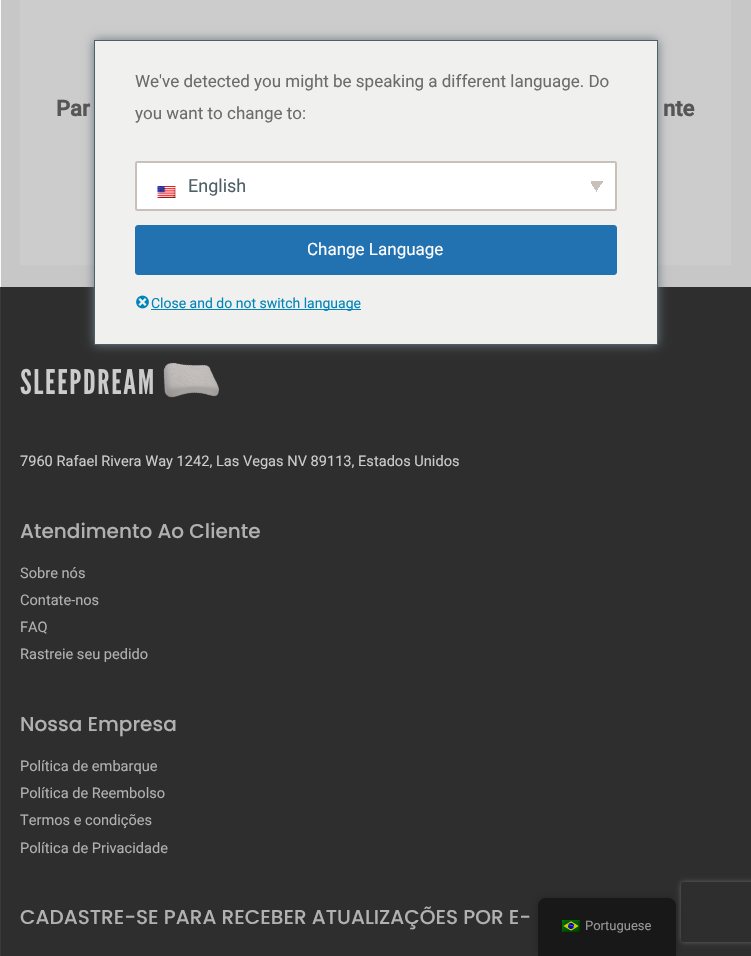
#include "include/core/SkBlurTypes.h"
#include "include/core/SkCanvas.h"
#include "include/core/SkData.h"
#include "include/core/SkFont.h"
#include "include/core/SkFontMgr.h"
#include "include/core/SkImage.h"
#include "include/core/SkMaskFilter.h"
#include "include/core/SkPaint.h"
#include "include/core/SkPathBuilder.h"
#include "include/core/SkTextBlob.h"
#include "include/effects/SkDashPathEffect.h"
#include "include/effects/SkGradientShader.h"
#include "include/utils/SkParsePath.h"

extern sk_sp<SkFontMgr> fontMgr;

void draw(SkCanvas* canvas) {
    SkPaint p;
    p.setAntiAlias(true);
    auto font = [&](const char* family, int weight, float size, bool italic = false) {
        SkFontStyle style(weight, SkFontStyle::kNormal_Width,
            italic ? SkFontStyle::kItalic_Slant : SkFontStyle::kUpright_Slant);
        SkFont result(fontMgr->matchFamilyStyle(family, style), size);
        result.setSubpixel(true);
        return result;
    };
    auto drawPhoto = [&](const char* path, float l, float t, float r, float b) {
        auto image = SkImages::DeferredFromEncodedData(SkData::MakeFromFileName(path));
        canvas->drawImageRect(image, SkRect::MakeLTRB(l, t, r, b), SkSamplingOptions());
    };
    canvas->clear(0xFFF9F9F9);
    {
        const struct { float l, t, r, b; SkColor color; } items[] = {
            {1, 0, 751, 287, 0xFFC7C7C7},
            {20, 0, 731, 265, 0xFFCCCCCC},
            {1, 287, 751, 956, 0xFF2E2E2E},
        };
        for (auto [l, t, r, b, color] : items) {
            p.setColor(color);
            canvas->drawRect(SkRect::MakeLTRB(l, t, r, b), p);
        }
    }
    p.setColor(0xFF6C7781);
    p.setMaskFilter(SkMaskFilter::MakeBlur(kNormal_SkBlurStyle, 5));
    canvas->drawRect(SkRect::MakeLTRB(94, 40, 658, 345), p);
    p.setMaskFilter(nullptr);
    p.setColor(0xFFF0F0EE);
    canvas->drawRect(SkRect::MakeLTRB(94.5f, 40.5f, 657.5f, 344.5f), p);
    p.setStyle(SkPaint::kStroke_Style);
    p.setStrokeWidth(1);
    p.setColor(0xFF4C6066);
    canvas->drawRect(SkRect::MakeLTRB(94.5f, 40.5f, 657.5f, 344.5f), p);
    auto font1 = font("Roboto", 400, 17);
    p.setStyle(SkPaint::kFill_Style);
    p.setColor(0xFF6C6C6C);
    canvas->drawString("We've detected you might be speaking a different language. Do", 135, 87, font1, p);
    canvas->drawString("you want to change to:", 135, 119, font1, p);
    p.setColor(0xFFFFFFFF);
    canvas->drawRoundRect(SkRect::MakeLTRB(135, 161, 617, 211), 2, 2, p);
    {
        const SkColor colors[] = {0xFFC9C0BB, 0xFFFFFFFF};
        const float stops[] = {0.5f, 0.5f};
        const SkPoint ends[] = {{595, 184}, {604, 190}};
        p.setShader(SkGradientShader::MakeLinear(ends, colors, stops, 2, SkTileMode::kClamp));
        p.setAlpha(255);
    }
    canvas->drawRect(SkRect::MakeLTRB(597, 181, 603, 193), p);
    {
        const SkColor colors[] = {0xFFFFFFFF, 0xFFC9C0BB};
        const float stops[] = {0.5f, 0.5f};
        const SkPoint ends[] = {{589, 190}, {598, 184}};
        p.setShader(SkGradientShader::MakeLinear(ends, colors, stops, 2, SkTileMode::kClamp));
        p.setAlpha(255);
    }
    canvas->drawRect(SkRect::MakeLTRB(591, 181, 597, 193), p);
    p.setStyle(SkPaint::kStroke_Style);
    p.setStrokeWidth(2);
    p.setShader(nullptr);
    p.setColor(0xFFC9C0BB);
    canvas->drawRoundRect(SkRect::MakeLTRB(136, 162, 616, 210), 1, 1, p);
    drawPhoto("media/1.png", 157, 186, 176, 198);
    auto font2 = font("Roboto", 400, 18);
    p.setStyle(SkPaint::kFill_Style);
    p.setColor(0xFF4C6066);
    canvas->drawString("English", 188, 192, font2, p);
    p.setColor(0xFF2271B1);
    canvas->drawRoundRect(SkRect::MakeLTRB(135.5f, 225.5f, 616.5f, 274.5f), 2.5f, 2.5f, p);
    p.setStyle(SkPaint::kStroke_Style);
    p.setStrokeWidth(1);
    canvas->drawRoundRect(SkRect::MakeLTRB(135.5f, 225.5f, 616.5f, 274.5f), 2.5f, 2.5f, p);
    p.setStyle(SkPaint::kFill_Style);
    p.setColor(0xFFFFFFFF);
    canvas->drawString("Change Language", 307, 255, font1, p);
    drawPhoto("media/2.png", 136, 295, 149, 309);
    p.setColor(0xFF0085BA);
    canvas->drawRect(SkRect::MakeLTRB(151, 309, 361, 310), p);
    auto font3 = font("Roboto", 400, 14);
    canvas->drawString("Close and do not switch language", 151, 308, font3, p);
    auto font4 = font("Roboto", 700, 22);
    p.setColor(0xFF565656);
    canvas->drawString("Par", 56, 116, font4, p);
    canvas->drawString("nte", 663, 116, font4, p);
    p.setColor(0xFF3A3A3A);
    canvas->drawRect(SkRect::MakeLTRB(0, 287, 1, 956), p);
    drawPhoto("media/3.png", 20, 362, 219, 398);
    auto font5 = font("Roboto", 400, 14.6f);
    p.setColor(0xFFCCCCCC);
    canvas->drawString("7960 Rafael Rivera Way 1242, Las Vegas NV 89113, Estados Unidos", 20, 466, font5, p);
    auto font6 = font("Poppins", 500, 20.05f);
    p.setColor(0xFFB1B1B1);
    canvas->drawString("Atendimento Ao Cliente", 20, 538, font6, p);
    {
        const struct { const char* s; float x, y; } items[] = {
            {"Sobre nós", 20, 578},
            {"Contate-nos", 20, 605},
            {"FAQ", 20, 632},
            {"Rastreie seu pedido", 20, 659},
        };
        for (auto [s, x, y] : items) {
            canvas->drawString(s, x, y, font5, p);
        }
    }
    canvas->drawString("Nossa Empresa", 20, 731, font6, p);
    {
        const struct { const char* s; float x, y; } items[] = {
            {"Política de embarque", 20, 771},
            {"Política de Reembolso", 20, 798},
            {"Termos e condições", 20, 825},
            {"Política de Privacidade", 20, 853},
        };
        for (auto [s, x, y] : items) {
            canvas->drawString(s, x, y, font5, p);
        }
    }
    canvas->drawString("CADASTRE-SE PARA RECEBER ATUALIZAÇÕES POR E-", 20, 924, font6, p);
    canvas->save();
    canvas->clipPath(SkPathBuilder(SkPathFillType::kEvenOdd).moveTo(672, 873).lineTo(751, 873).lineTo(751, 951).lineTo(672, 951).close().moveTo(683, 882).lineTo(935, 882).cubicTo(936, 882, 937, 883, 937, 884).lineTo(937, 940).cubicTo(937, 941, 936, 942, 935, 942).lineTo(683, 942).cubicTo(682, 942, 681, 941, 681, 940).lineTo(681, 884).cubicTo(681, 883, 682, 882, 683, 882).close().detach(), true);
    p.setColor(0xFF666666);
    p.setMaskFilter(SkMaskFilter::MakeBlur(kNormal_SkBlurStyle, 2.5f));
    canvas->drawRoundRect(SkRect::MakeLTRB(681, 882, 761, 942), 2, 2, p);
    p.setMaskFilter(nullptr);
    canvas->restore();
    p.setColor(0x40000000);
    p.setMaskFilter(SkMaskFilter::MakeBlur(kNormal_SkBlurStyle, 4));
    canvas->drawRoundRect(SkRect::MakeLTRB(538, 898, 676, 956), 8, 8, p);
    p.setMaskFilter(nullptr);
    p.setColor(0xFF181818);
    canvas->drawPath(SkPathBuilder().moveTo(546, 898).lineTo(668, 898).cubicTo(672.5f, 898, 676, 901.5f, 676, 906).lineTo(676, 956).lineTo(538, 956).lineTo(538, 906).cubicTo(538, 901.5f, 541.5f, 898, 546, 898).close().detach(), p);
    drawPhoto("media/4.png", 562, 920, 580, 932);
    auto font7 = font("Roboto", 400, 13);
    p.setColor(0xFF979797);
    canvas->drawString("Portuguese", 585, 930, font7, p);
}
